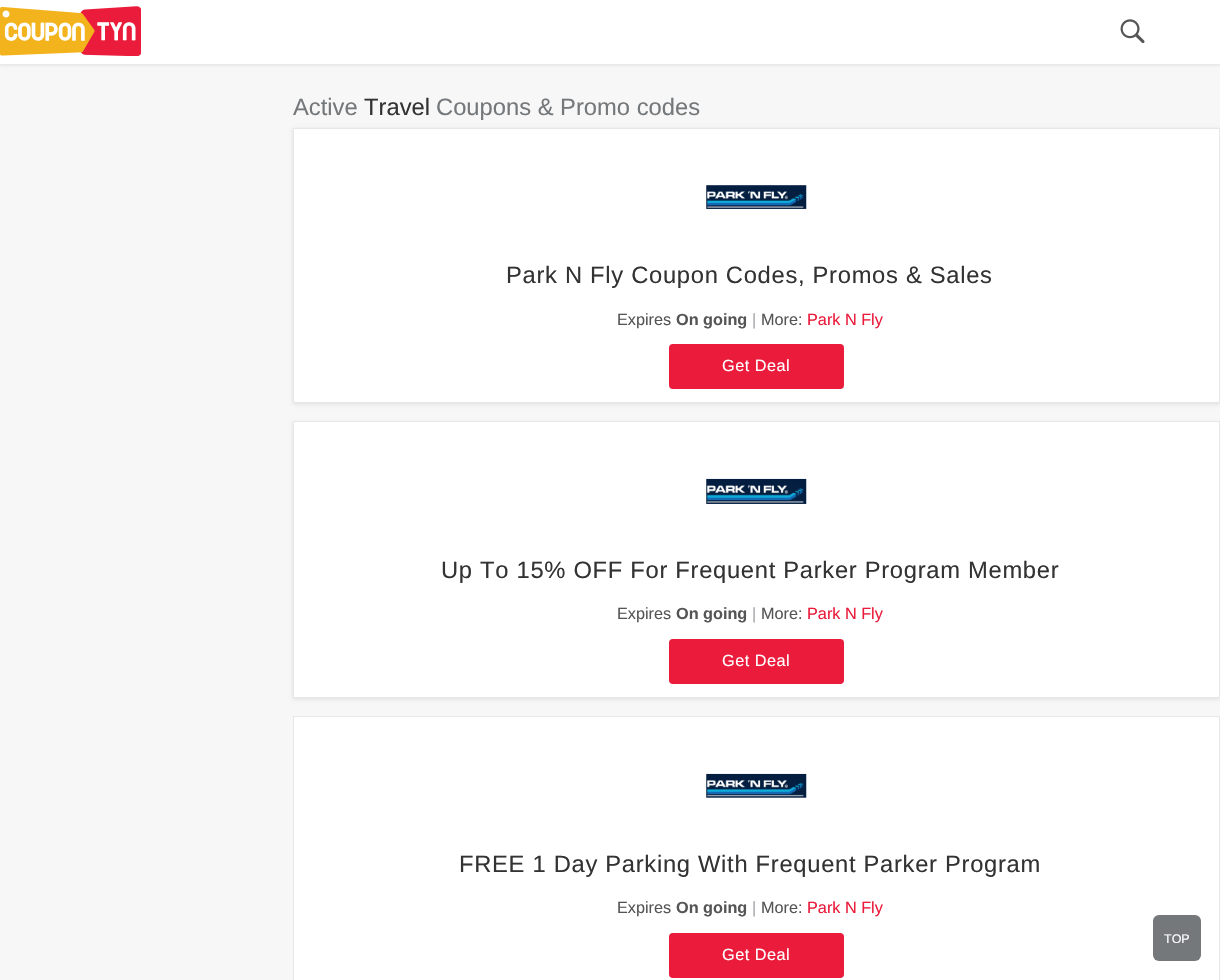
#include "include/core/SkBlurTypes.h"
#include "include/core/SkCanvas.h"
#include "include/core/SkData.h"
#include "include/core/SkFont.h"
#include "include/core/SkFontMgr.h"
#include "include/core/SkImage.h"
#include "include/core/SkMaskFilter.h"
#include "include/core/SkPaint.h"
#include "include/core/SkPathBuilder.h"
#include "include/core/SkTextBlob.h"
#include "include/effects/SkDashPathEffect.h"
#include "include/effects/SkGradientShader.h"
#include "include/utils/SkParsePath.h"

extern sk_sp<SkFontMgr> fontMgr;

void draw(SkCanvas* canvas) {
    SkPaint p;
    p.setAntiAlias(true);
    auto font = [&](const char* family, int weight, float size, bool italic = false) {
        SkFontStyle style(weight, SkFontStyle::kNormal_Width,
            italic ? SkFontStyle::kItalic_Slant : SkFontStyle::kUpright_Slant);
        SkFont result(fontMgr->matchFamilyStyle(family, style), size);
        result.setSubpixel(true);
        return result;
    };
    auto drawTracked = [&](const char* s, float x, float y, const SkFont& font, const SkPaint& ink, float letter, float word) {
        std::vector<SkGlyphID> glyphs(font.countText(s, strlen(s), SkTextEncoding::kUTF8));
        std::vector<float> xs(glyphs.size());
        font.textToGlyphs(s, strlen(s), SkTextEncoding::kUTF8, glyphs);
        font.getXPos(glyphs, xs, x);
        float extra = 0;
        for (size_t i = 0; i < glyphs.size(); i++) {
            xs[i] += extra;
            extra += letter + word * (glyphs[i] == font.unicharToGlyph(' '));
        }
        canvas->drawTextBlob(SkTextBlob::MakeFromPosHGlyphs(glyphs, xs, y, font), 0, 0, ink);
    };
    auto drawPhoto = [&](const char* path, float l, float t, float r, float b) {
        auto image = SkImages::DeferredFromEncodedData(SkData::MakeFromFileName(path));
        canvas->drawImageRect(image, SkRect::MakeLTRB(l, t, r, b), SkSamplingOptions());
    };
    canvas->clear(0xFFF7F7F7);
    p.setColor(0x0F000000);
    p.setMaskFilter(SkMaskFilter::MakeBlur(kNormal_SkBlurStyle, 1));
    canvas->drawRect(SkRect::MakeLTRB(0, 3, 1220, 66), p);
    p.setMaskFilter(nullptr);
    p.setColor(0xFFFFFFFF);
    canvas->drawRect(SkRect::MakeLTRB(0, 0, 1220, 64), p);
    drawPhoto("media/1.png", 0, 6, 141, 56);
    drawPhoto("media/2.png", 1120, 19, 1145, 44);
    auto font1 = font("Liberation Sans", 400, 23.75f);
    p.setColor(0xFF75787B);
    canvas->drawString("Active", 293, 115, font1, p);
    p.setColor(0xFF333333);
    canvas->drawString("Travel", 364, 115, font1, p);
    p.setColor(0xFF75787B);
    canvas->drawString("Coupons & Promo codes", 436, 115, font1, p);
    p.setColor(0x1A000000);
    p.setMaskFilter(SkMaskFilter::MakeBlur(kNormal_SkBlurStyle, 2));
    canvas->drawRect(SkRect::MakeLTRB(293, 129, 1220, 404), p);
    p.setMaskFilter(nullptr);
    p.setColor(0xFFFFFFFF);
    canvas->drawRect(SkRect::MakeLTRB(293.5f, 128.5f, 1219.5f, 402.5f), p);
    p.setStyle(SkPaint::kStroke_Style);
    p.setStrokeWidth(1);
    p.setColor(0xFFE6E7E8);
    canvas->drawRect(SkRect::MakeLTRB(293.5f, 128.5f, 1219.5f, 402.5f), p);
    drawPhoto("media/3.png", 706, 185, 807, 209);
    p.setStyle(SkPaint::kFill_Style);
    p.setColor(0xFF333333);
    drawTracked("Park N Fly Coupon Codes, Promos & Sales", 506, 283, font1, p, 0.7f, 0);
    auto font2 = font("Liberation Sans", 400, 16.25f);
    p.setColor(0xFF555555);
    canvas->drawString("Expires", 617, 325, font2, p);
    auto font3 = font("Liberation Sans", 700, 16.25f);
    canvas->drawString("On going", 676, 325, font3, p);
    p.setColor(0xFFA5A8AB);
    canvas->drawString("|", 752, 325, font2, p);
    p.setColor(0xFF555555);
    canvas->drawString("More:", 761, 325, font2, p);
    p.setColor(0xFFEA1B3B);
    canvas->drawString("Park N Fly", 807, 325, font2, p);
    canvas->drawRoundRect(SkRect::MakeLTRB(669, 344, 844, 389), 4, 4, p);
    p.setColor(0xFFFFFFFF);
    drawTracked("Get Deal", 722, 371, font2, p, 0.5f, 0);
    p.setColor(0x1A000000);
    p.setMaskFilter(SkMaskFilter::MakeBlur(kNormal_SkBlurStyle, 2));
    canvas->drawRect(SkRect::MakeLTRB(293, 423, 1220, 699), p);
    p.setMaskFilter(nullptr);
    p.setColor(0xFFFFFFFF);
    canvas->drawRect(SkRect::MakeLTRB(293.5f, 421.5f, 1219.5f, 697.5f), p);
    p.setStyle(SkPaint::kStroke_Style);
    p.setColor(0xFFE6E7E8);
    canvas->drawRect(SkRect::MakeLTRB(293.5f, 421.5f, 1219.5f, 697.5f), p);
    drawPhoto("media/4.png", 706, 478, 807, 504);
    p.setStyle(SkPaint::kFill_Style);
    p.setColor(0xFF333333);
    drawTracked("Up To 15% OFF For Frequent Parker Program Member", 441, 578, font1, p, 0.7f, 0);
    p.setColor(0xFF555555);
    canvas->drawString("Expires", 617, 619, font2, p);
    canvas->drawString("On going", 676, 619, font3, p);
    p.setColor(0xFFA5A8AB);
    canvas->drawString("|", 752, 619, font2, p);
    p.setColor(0xFF555555);
    canvas->drawString("More:", 761, 619, font2, p);
    p.setColor(0xFFEA1B3B);
    canvas->drawString("Park N Fly", 807, 619, font2, p);
    canvas->drawRoundRect(SkRect::MakeLTRB(669, 639, 844, 684), 4, 4, p);
    p.setColor(0xFFFFFFFF);
    drawTracked("Get Deal", 722, 666, font2, p, 0.5f, 0);
    canvas->drawRect(SkRect::MakeLTRB(293.5f, 716.5f, 1219.5f, 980.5f), p);
    p.setStyle(SkPaint::kStroke_Style);
    p.setColor(0xFFE6E7E8);
    canvas->drawRect(SkRect::MakeLTRB(293.5f, 716.5f, 1219.5f, 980.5f), p);
    drawPhoto("media/5.png", 706, 773, 807, 798);
    p.setStyle(SkPaint::kFill_Style);
    p.setColor(0xFF333333);
    drawTracked("FREE 1 Day Parking With Frequent Parker Program", 459, 872, font1, p, 0.7f, 0);
    p.setColor(0xFF555555);
    canvas->drawString("Expires", 617, 913, font2, p);
    canvas->drawString("On going", 676, 913, font3, p);
    p.setColor(0xFFA5A8AB);
    canvas->drawString("|", 752, 913, font2, p);
    p.setColor(0xFF555555);
    canvas->drawString("More:", 761, 913, font2, p);
    p.setColor(0xFFEA1B3B);
    canvas->drawString("Park N Fly", 807, 913, font2, p);
    canvas->drawRoundRect(SkRect::MakeLTRB(669, 933, 844, 978), 4, 4, p);
    p.setColor(0xFFFFFFFF);
    drawTracked("Get Deal", 722, 960, font2, p, 0.5f, 0);
    p.setColor(0xFF75787B);
    canvas->drawRoundRect(SkRect::MakeLTRB(1153, 915, 1201, 961), 6, 6, p);
    auto font4 = font("Liberation Sans", 400, 12.5f);
    p.setColor(0xFFFFFFFF);
    canvas->drawString("TOP", 1164, 943, font4, p);
}
